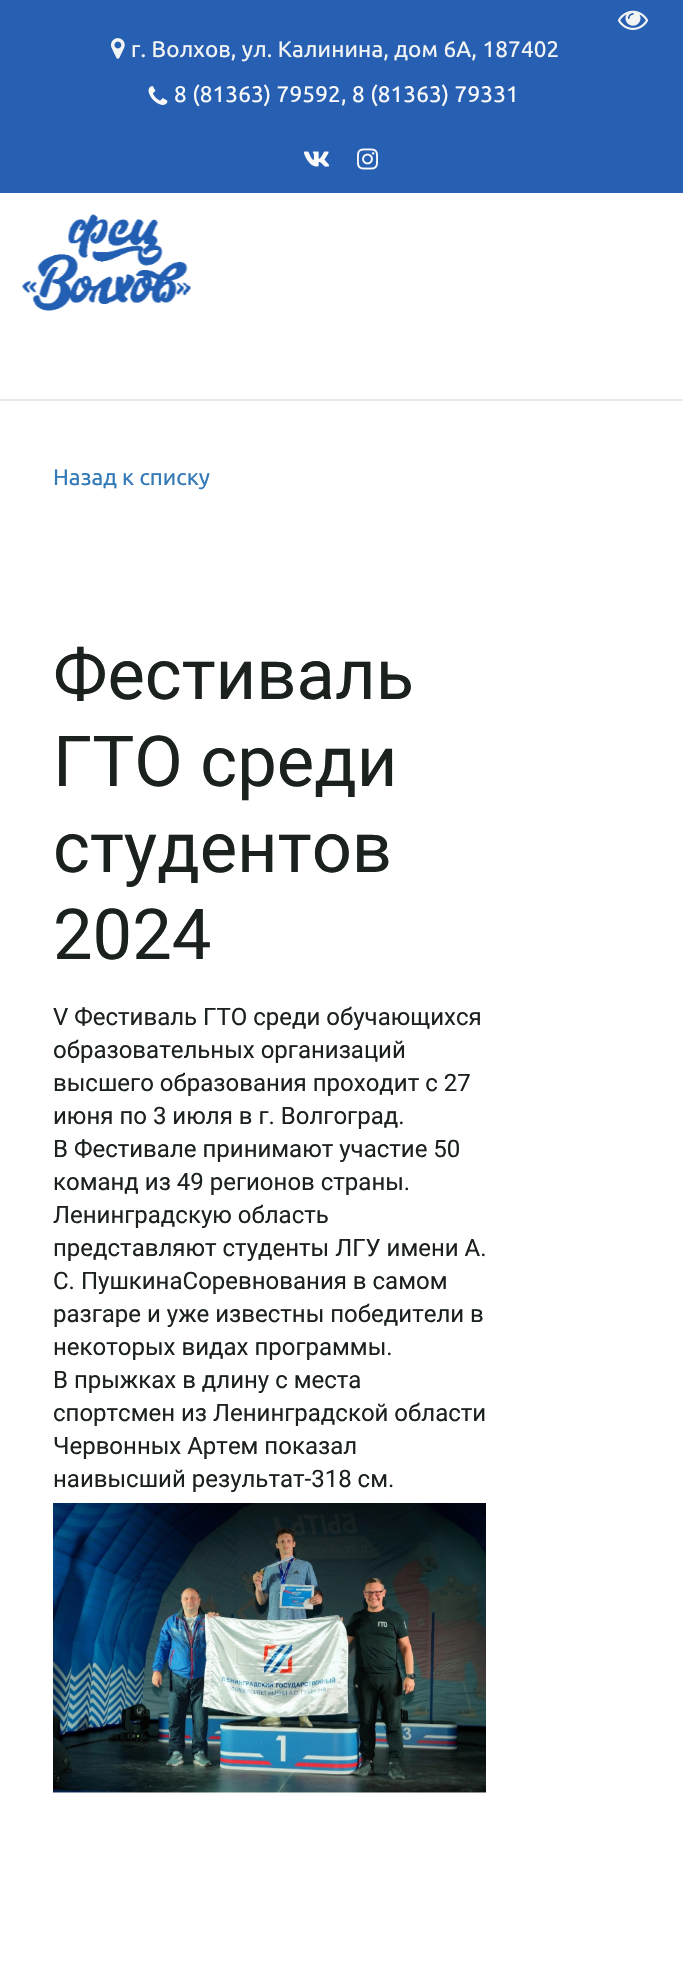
#include "include/core/SkBlurTypes.h"
#include "include/core/SkCanvas.h"
#include "include/core/SkData.h"
#include "include/core/SkFont.h"
#include "include/core/SkFontMgr.h"
#include "include/core/SkImage.h"
#include "include/core/SkMaskFilter.h"
#include "include/core/SkPaint.h"
#include "include/core/SkPathBuilder.h"
#include "include/core/SkTextBlob.h"
#include "include/effects/SkDashPathEffect.h"
#include "include/effects/SkGradientShader.h"
#include "include/utils/SkParsePath.h"

extern sk_sp<SkFontMgr> fontMgr;

void draw(SkCanvas* canvas) {
    SkPaint p;
    p.setAntiAlias(true);
    auto font = [&](const char* family, int weight, float size, bool italic = false) {
        SkFontStyle style(weight, SkFontStyle::kNormal_Width,
            italic ? SkFontStyle::kItalic_Slant : SkFontStyle::kUpright_Slant);
        SkFont result(fontMgr->matchFamilyStyle(family, style), size);
        result.setSubpixel(true);
        return result;
    };
    auto drawTracked = [&](const char* s, float x, float y, const SkFont& font, const SkPaint& ink, float letter, float word) {
        std::vector<SkGlyphID> glyphs(font.countText(s, strlen(s), SkTextEncoding::kUTF8));
        std::vector<float> xs(glyphs.size());
        font.textToGlyphs(s, strlen(s), SkTextEncoding::kUTF8, glyphs);
        font.getXPos(glyphs, xs, x);
        float extra = 0;
        for (size_t i = 0; i < glyphs.size(); i++) {
            xs[i] += extra;
            extra += letter + word * (glyphs[i] == font.unicharToGlyph(' '));
        }
        canvas->drawTextBlob(SkTextBlob::MakeFromPosHGlyphs(glyphs, xs, y, font), 0, 0, ink);
    };
    auto drawPhoto = [&](const char* path, float l, float t, float r, float b) {
        auto image = SkImages::DeferredFromEncodedData(SkData::MakeFromFileName(path));
        canvas->drawImageRect(image, SkRect::MakeLTRB(l, t, r, b), SkSamplingOptions());
    };
    canvas->clear(0xFFFFFFFF);
    p.setColor(0xFF275FB2);
    canvas->drawRect(SkRect::MakeLTRB(0, 0, 683, 193), p);
    drawPhoto("media/1.png", 618, 10, 648, 30);
    drawPhoto("media/2.png", 111, 38, 125, 59);
    auto font1 = font("Ubuntu", 400, 22.5f);
    p.setColor(0xFFF2F5F4);
    drawTracked("г. Волхов, ул. Калинина, дом 6А, 187402", 131, 57, font1, p, 0.15f, 0);
    drawPhoto("media/3.png", 148, 86, 168, 105);
    p.setColor(0xFFFAFAFA);
    drawTracked("8 (81363) 79592", 174, 102, font1, p, 0.15f, 0);
    p.setColor(0xFFF2F5F4);
    drawTracked(",", 341, 102, font1, p, 0.15f, 0);
    p.setColor(0xFFFAFAFA);
    drawTracked("8 (81363) 79331", 352, 102, font1, p, 0.15f, 0);
    drawPhoto("media/4.png", 303, 151, 330, 167);
    drawPhoto("media/5.png", 357, 148, 378, 170);
    p.setColor(0xFFE8E9E9);
    canvas->drawRect(SkRect::MakeLTRB(0, 399, 683, 401), p);
    drawPhoto("media/6.png", 22, 214, 191, 311);
    p.setColor(0xFF337AB7);
    canvas->drawString("Назад к списку", 53, 485, font1, p);
    auto font2 = font("Roboto", 400, 70.5f);
    p.setColor(0xFF1B211D);
    {
        const struct { const char* s; float x, y; } items[] = {
            {"Фестиваль", 53, 699},
            {"ГТО среди", 53, 786},
            {"студентов", 53, 872},
            {"2024", 53, 959},
        };
        for (auto [s, x, y] : items) {
            canvas->drawString(s, x, y, font2, p);
        }
    }
    auto font3 = font("Roboto", 400, 24);
    {
        const struct { const char* s; float x, y; } items[] = {
            {"V Фестиваль ГТО среди обучающихся", 53, 1025},
            {"образовательных организаций", 53, 1058},
            {"высшего образования проходит с 27", 53, 1091},
            {"июня по 3 июля в г. Волгоград.", 53, 1124},
            {"В Фестивале принимают участие 50", 53, 1157},
            {"команд из 49 регионов страны.", 53, 1190},
            {"Ленинградскую область", 53, 1223},
            {"представляют студенты ЛГУ имени А.", 53, 1256},
            {"С. ПушкинаСоревнования в самом", 53, 1289},
            {"разгаре и уже известны победители в", 53, 1322},
            {"некоторых видах программы.", 53, 1355},
            {"В прыжках в длину с места", 53, 1388},
            {"спортсмен из Ленинградской области", 53, 1421},
            {"Червонных Артем показал", 53, 1454},
            {"наивысший результат-318 см.", 53, 1487},
        };
        for (auto [s, x, y] : items) {
            canvas->drawString(s, x, y, font3, p);
        }
    }
    drawPhoto("media/7.png", 53, 1503, 486, 1793);
}
